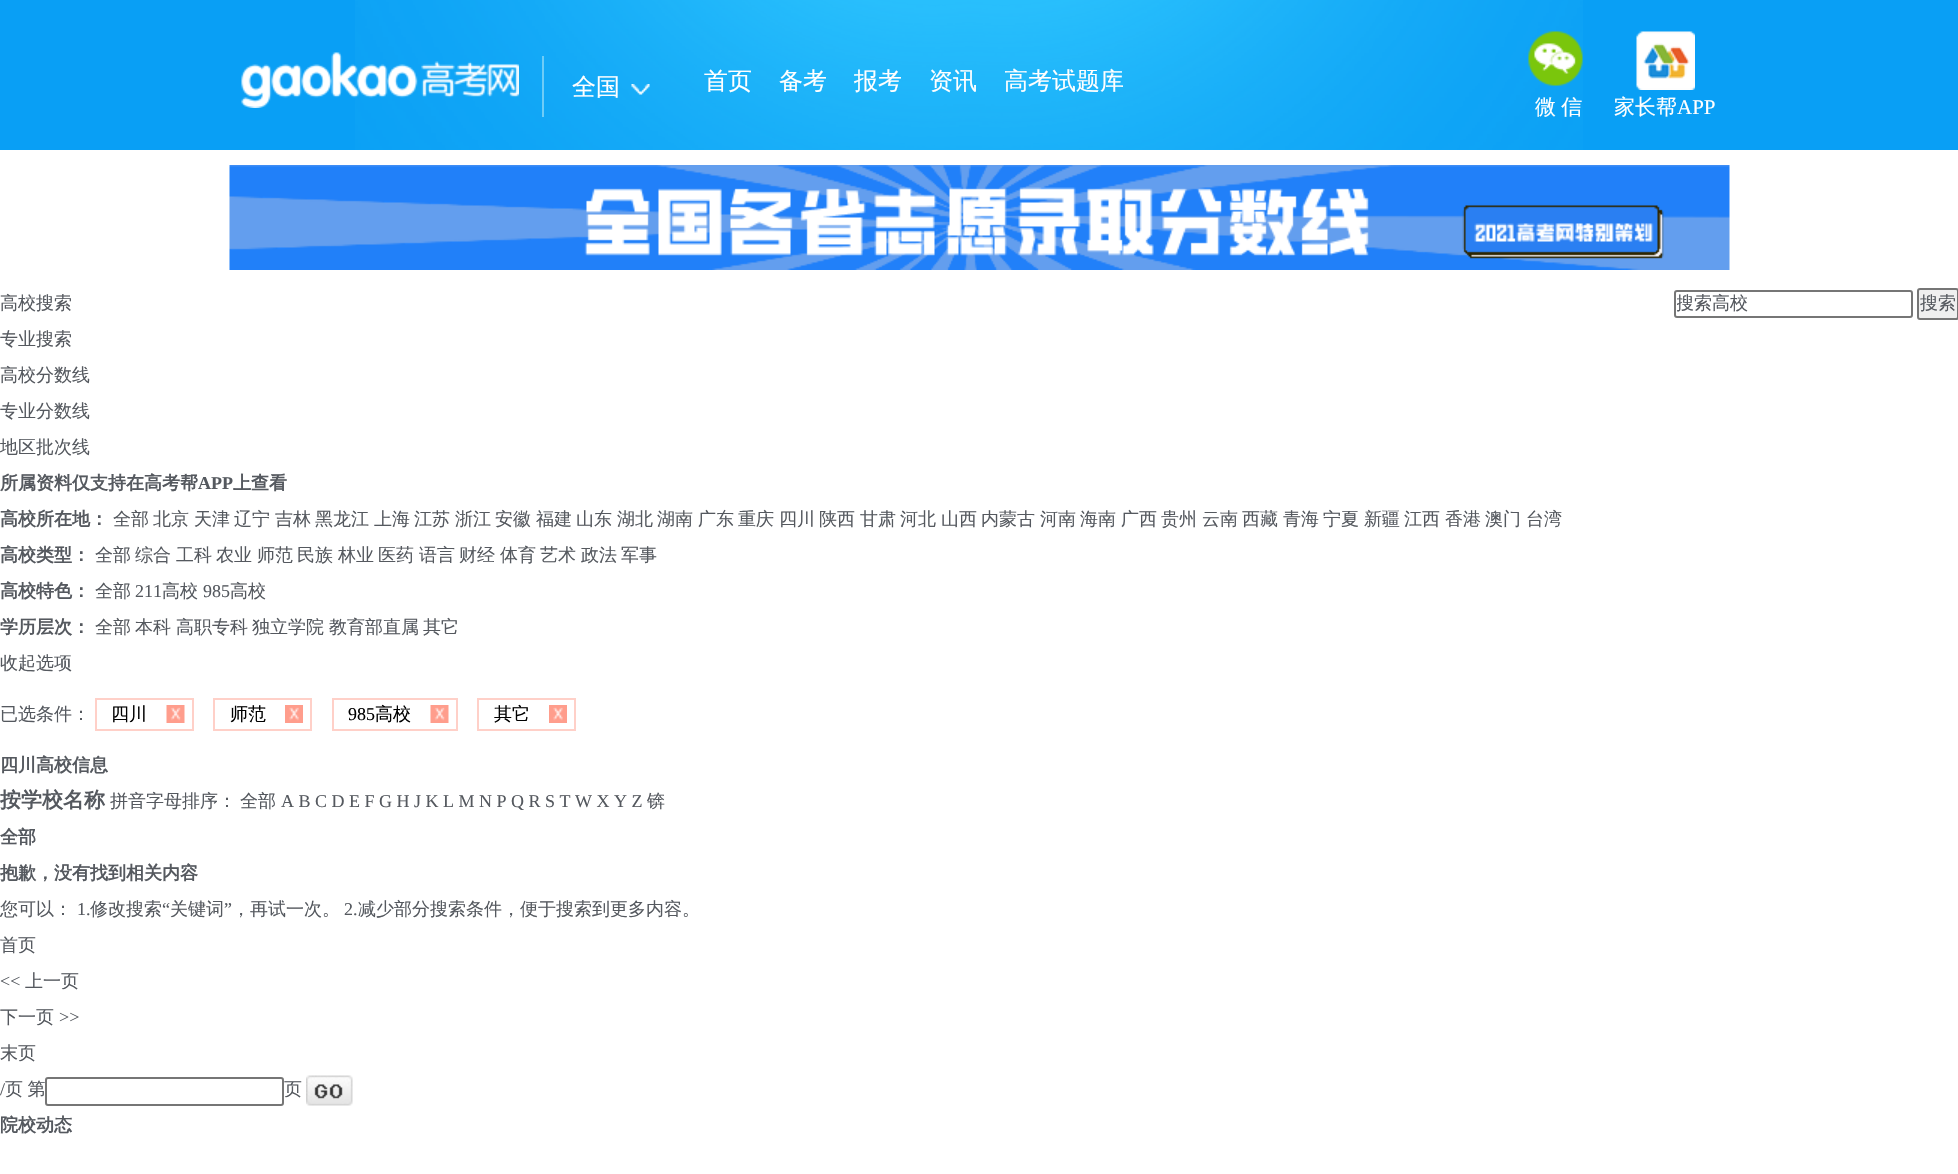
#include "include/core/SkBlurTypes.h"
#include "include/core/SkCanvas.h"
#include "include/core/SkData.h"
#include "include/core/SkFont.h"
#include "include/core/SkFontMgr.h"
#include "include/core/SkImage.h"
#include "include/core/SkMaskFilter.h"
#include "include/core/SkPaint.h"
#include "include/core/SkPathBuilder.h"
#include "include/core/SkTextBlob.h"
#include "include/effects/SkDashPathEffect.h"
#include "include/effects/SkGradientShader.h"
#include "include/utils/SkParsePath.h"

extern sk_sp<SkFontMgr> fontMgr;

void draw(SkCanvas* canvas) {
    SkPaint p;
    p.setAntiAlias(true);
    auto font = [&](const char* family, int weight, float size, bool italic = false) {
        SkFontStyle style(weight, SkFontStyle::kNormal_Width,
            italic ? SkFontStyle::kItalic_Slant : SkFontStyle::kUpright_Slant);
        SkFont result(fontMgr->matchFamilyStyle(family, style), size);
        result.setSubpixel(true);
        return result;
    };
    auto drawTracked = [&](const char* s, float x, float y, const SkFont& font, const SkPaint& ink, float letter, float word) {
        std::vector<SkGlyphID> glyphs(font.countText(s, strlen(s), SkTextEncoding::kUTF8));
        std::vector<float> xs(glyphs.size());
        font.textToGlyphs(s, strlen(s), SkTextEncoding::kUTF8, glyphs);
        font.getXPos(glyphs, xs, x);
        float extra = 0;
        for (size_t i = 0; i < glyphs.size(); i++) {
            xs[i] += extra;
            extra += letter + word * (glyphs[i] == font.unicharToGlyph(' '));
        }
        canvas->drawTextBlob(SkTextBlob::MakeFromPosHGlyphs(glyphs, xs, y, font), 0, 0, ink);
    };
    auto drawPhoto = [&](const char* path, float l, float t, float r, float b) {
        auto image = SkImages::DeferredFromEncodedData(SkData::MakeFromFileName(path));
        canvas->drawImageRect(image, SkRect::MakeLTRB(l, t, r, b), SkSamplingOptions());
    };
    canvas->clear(0xFFFFFFFF);
    p.setColor(0xFF099FF5);
    canvas->drawRect(SkRect::MakeLTRB(0, 0, 1958, 150), p);
    drawPhoto("media/1.png", 355, 0, 1583, 150);
    drawPhoto("media/2.png", 241, 52, 519, 108);
    p.setColor(0xFF6ECCF7);
    canvas->drawRect(SkRect::MakeLTRB(542, 56, 544, 117), p);
    auto font1 = font("WenQuanYi Zen Hei", 500, 24);
    p.setColor(0xFFFFFFFF);
    canvas->drawString("全国", 572, 95, font1, p);
    drawPhoto("media/3.png", 631, 84, 650, 95);
    {
        const struct { const char* s; float x, y; } items[] = {
            {"首页", 704, 89},
            {"备考", 779, 89},
            {"报考", 854, 89},
            {"资讯", 929, 89},
            {"高考试题库", 1004, 89},
        };
        for (auto [s, x, y] : items) {
            canvas->drawString(s, x, y, font1, p);
        }
    }
    drawPhoto("media/4.png", 1528, 31, 1583, 86);
    auto font2 = font("WenQuanYi Zen Hei", 500, 21);
    drawTracked("微 信", 1535, 114, font2, p, 0, -1);
    drawPhoto("media/5.png", 1636, 31, 1695, 90);
    canvas->drawString("家长帮", 1614, 114, font2, p);
    auto font3 = font("Liberation Serif", 400, 21);
    canvas->drawString("APP", 1677, 114, font3, p);
    drawPhoto("media/6.png", 229, 165, 1730, 270);
    auto font4 = font("WenQuanYi Zen Hei", 500, 18);
    p.setColor(0xFF55595F);
    {
        const struct { const char* s; float x, y; } items[] = {
            {"高校搜索", 0, 309},
            {"专业搜索", 0, 345},
            {"高校分数线", 0, 381},
            {"专业分数线", 0, 417},
            {"地区批次线", 0, 453},
        };
        for (auto [s, x, y] : items) {
            canvas->drawString(s, x, y, font4, p);
        }
    }
    p.setStyle(SkPaint::kStroke_Style);
    p.setStrokeWidth(2);
    p.setColor(0xFF767676);
    canvas->drawRoundRect(SkRect::MakeLTRB(1675, 291, 1912, 317), 2, 2, p);
    canvas->save();
    canvas->clipRect(SkRect::MakeLTRB(1677, 293, 1910, 315));
    p.setStyle(SkPaint::kFill_Style);
    p.setColor(0xFF55595F);
    canvas->drawString("搜索高校", 1676, 309, font4, p);
    canvas->restore();
    p.setColor(0xFFEFEFEF);
    canvas->drawRoundRect(SkRect::MakeLTRB(1918, 289, 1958, 319), 2, 2, p);
    p.setStyle(SkPaint::kStroke_Style);
    p.setColor(0xFF767676);
    canvas->drawRoundRect(SkRect::MakeLTRB(1918, 289, 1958, 319), 2, 2, p);
    p.setStyle(SkPaint::kFill_Style);
    p.setColor(0xFF55595F);
    canvas->drawString("搜索", 1920, 309, font4, p);
    auto font5 = font("WenQuanYi Zen Hei", 700, 18);
    canvas->drawString("所属资料仅支持在高考帮", 0, 489, font5, p);
    auto font6 = font("Liberation Serif", 700, 18);
    canvas->drawString("APP", 198, 489, font6, p);
    canvas->drawString("上查看", 233, 489, font5, p);
    canvas->drawString("高校所在地：", 0, 525, font5, p);
    {
        const struct { const char* s; float x, y; } items[] = {
            {"全部", 113, 525},
            {"北京", 153, 525},
            {"天津", 194, 525},
            {"辽宁", 234, 525},
            {"吉林", 275, 525},
            {"黑龙江", 315, 525},
            {"上海", 374, 525},
            {"江苏", 414, 525},
            {"浙江", 455, 525},
            {"安徽", 495, 525},
            {"福建", 536, 525},
            {"山东", 576, 525},
            {"湖北", 617, 525},
            {"湖南", 657, 525},
            {"广东", 698, 525},
            {"重庆", 738, 525},
            {"四川", 779, 525},
            {"陕西", 819, 525},
            {"甘肃", 860, 525},
            {"河北", 900, 525},
            {"山西", 941, 525},
            {"内蒙古", 981, 525},
            {"河南", 1040, 525},
            {"海南", 1080, 525},
            {"广西", 1121, 525},
            {"贵州", 1161, 525},
            {"云南", 1202, 525},
            {"西藏", 1242, 525},
            {"青海", 1283, 525},
            {"宁夏", 1323, 525},
            {"新疆", 1364, 525},
            {"江西", 1404, 525},
            {"香港", 1445, 525},
            {"澳门", 1485, 525},
            {"台湾", 1526, 525},
        };
        for (auto [s, x, y] : items) {
            canvas->drawString(s, x, y, font4, p);
        }
    }
    canvas->drawString("高校类型：", 0, 561, font5, p);
    {
        const struct { const char* s; float x, y; } items[] = {
            {"全部", 95, 561},
            {"综合", 135, 561},
            {"工科", 176, 561},
            {"农业", 216, 561},
            {"师范", 257, 561},
            {"民族", 297, 561},
            {"林业", 338, 561},
            {"医药", 378, 561},
            {"语言", 419, 561},
            {"财经", 459, 561},
            {"体育", 500, 561},
            {"艺术", 540, 561},
            {"政法", 581, 561},
            {"军事", 621, 561},
        };
        for (auto [s, x, y] : items) {
            canvas->drawString(s, x, y, font4, p);
        }
    }
    canvas->drawString("高校特色：", 0, 597, font5, p);
    canvas->drawString("全部", 95, 597, font4, p);
    auto font7 = font("Liberation Serif", 400, 18);
    canvas->drawString("211", 135, 597, font7, p);
    canvas->drawString("高校", 162, 597, font4, p);
    canvas->drawString("985", 203, 597, font7, p);
    canvas->drawString("高校", 230, 597, font4, p);
    canvas->drawString("学历层次：", 0, 633, font5, p);
    {
        const struct { const char* s; float x, y; } items[] = {
            {"全部", 95, 633},
            {"本科", 135, 633},
            {"高职专科", 176, 633},
            {"独立学院", 252, 633},
            {"教育部直属", 329, 633},
            {"其它", 423, 633},
            {"收起选项", 0, 669},
            {"已选条件：", 0, 720},
        };
        for (auto [s, x, y] : items) {
            canvas->drawString(s, x, y, font4, p);
        }
    }
    p.setStyle(SkPaint::kStroke_Style);
    p.setColor(0xFFFFD0C8);
    canvas->drawRect(SkRect::MakeLTRB(96, 699, 193, 730), p);
    p.setStyle(SkPaint::kFill_Style);
    p.setColor(0xFF000000);
    canvas->drawString("四川", 111, 720, font4, p);
    drawPhoto("media/7.png", 166, 705, 185, 723);
    p.setStyle(SkPaint::kStroke_Style);
    p.setColor(0xFFFFD0C8);
    canvas->drawRect(SkRect::MakeLTRB(214, 699, 311, 730), p);
    p.setStyle(SkPaint::kFill_Style);
    p.setColor(0xFF000000);
    canvas->drawString("师范", 230, 720, font4, p);
    drawPhoto("media/8.png", 285, 705, 303, 723);
    p.setStyle(SkPaint::kStroke_Style);
    p.setColor(0xFFFFD0C8);
    canvas->drawRect(SkRect::MakeLTRB(333, 699, 457, 730), p);
    p.setStyle(SkPaint::kFill_Style);
    p.setColor(0xFF000000);
    canvas->drawString("985", 348, 720, font7, p);
    canvas->drawString("高校", 375, 720, font4, p);
    drawPhoto("media/9.png", 430, 705, 449, 723);
    p.setStyle(SkPaint::kStroke_Style);
    p.setColor(0xFFFFD0C8);
    canvas->drawRect(SkRect::MakeLTRB(478, 699, 575, 730), p);
    p.setStyle(SkPaint::kFill_Style);
    p.setColor(0xFF000000);
    canvas->drawString("其它", 494, 720, font4, p);
    drawPhoto("media/10.png", 549, 705, 567, 723);
    p.setColor(0xFF55595F);
    canvas->drawString("四川高校信息", 0, 771, font5, p);
    auto font8 = font("WenQuanYi Zen Hei", 700, 21);
    canvas->drawString("按学校名称", 0, 807, font8, p);
    canvas->drawString("拼音字母排序：", 110, 807, font4, p);
    canvas->drawString("全部", 240, 807, font4, p);
    canvas->drawString("A B C D E F G H J K L M N P Q R S T W X Y Z", 281, 807, font7, p);
    canvas->drawString("锛", 647, 807, font4, p);
    canvas->drawString("全部", 0, 843, font5, p);
    canvas->drawString("抱歉，没有找到相关内容", 0, 879, font5, p);
    canvas->drawString("您可以：", 0, 915, font4, p);
    canvas->drawString("1.", 77, 915, font7, p);
    canvas->drawString("修改搜索", 90, 915, font4, p);
    canvas->drawString("“", 162, 915, font7, p);
    canvas->drawString("关键词", 170, 915, font4, p);
    canvas->drawString("”", 224, 915, font7, p);
    canvas->drawString("，再试一次。", 232, 915, font4, p);
    canvas->drawString("2.", 344, 915, font7, p);
    canvas->drawString("减少部分搜索条件，便于搜索到更多内容。", 358, 915, font4, p);
    canvas->drawString("首页", 0, 951, font4, p);
    canvas->drawString("<<", 0, 987, font7, p);
    canvas->drawString("上一页", 25, 987, font4, p);
    canvas->drawString("下一页", 0, 1023, font4, p);
    canvas->drawString(">>", 59, 1023, font7, p);
    canvas->drawString("末页", 0, 1059, font4, p);
    canvas->drawString("/", 0, 1095, font7, p);
    drawTracked("页 第", 5, 1095, font4, p, 0, -1);
    p.setStyle(SkPaint::kStroke_Style);
    p.setColor(0xFF767676);
    canvas->drawRoundRect(SkRect::MakeLTRB(46, 1078, 283, 1105), 2, 2, p);
    p.setStyle(SkPaint::kFill_Style);
    p.setColor(0xFF55595F);
    canvas->drawString("页", 284, 1095, font4, p);
    drawPhoto("media/11.png", 306, 1075, 353, 1106);
    canvas->drawString("院校动态", 0, 1131, font5, p);
}
